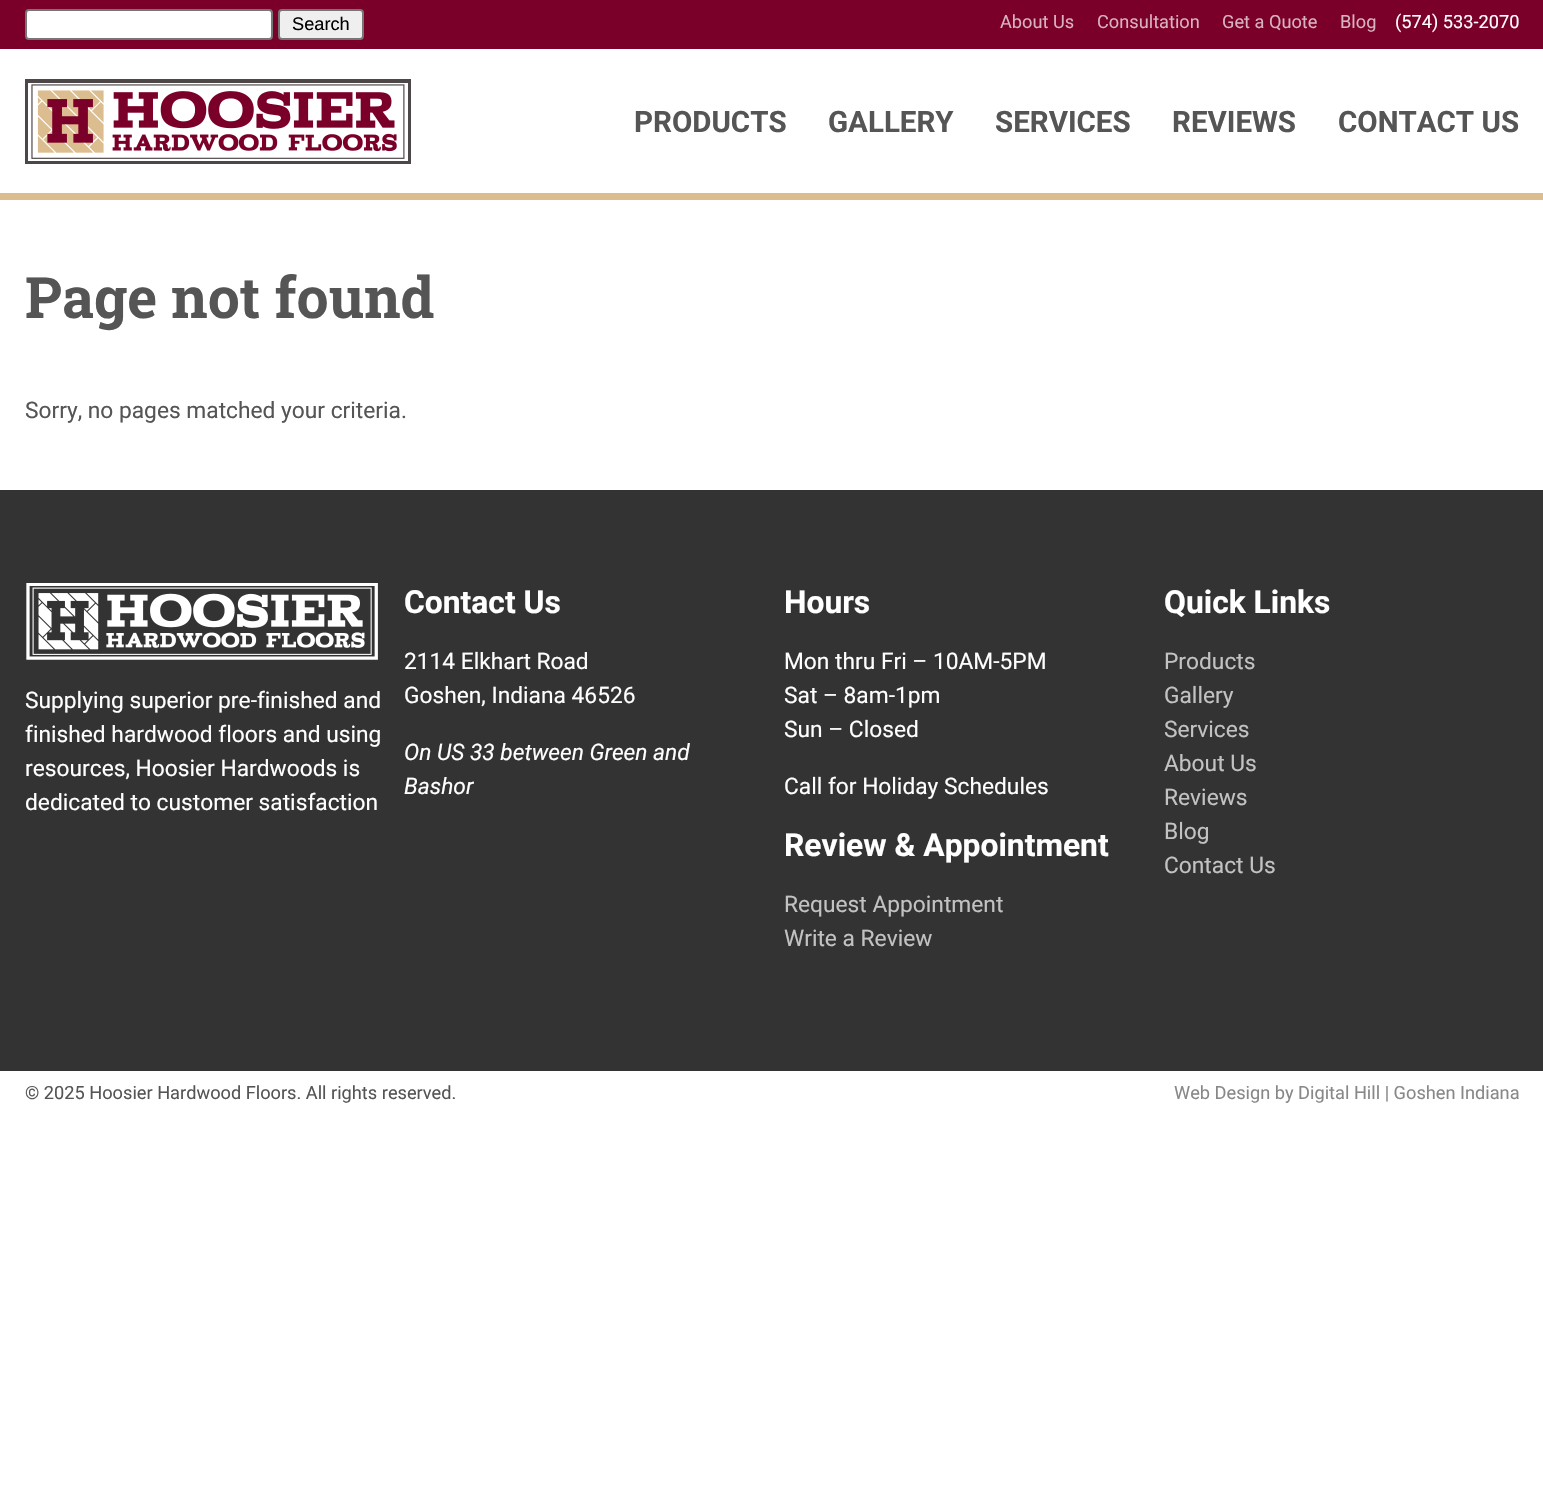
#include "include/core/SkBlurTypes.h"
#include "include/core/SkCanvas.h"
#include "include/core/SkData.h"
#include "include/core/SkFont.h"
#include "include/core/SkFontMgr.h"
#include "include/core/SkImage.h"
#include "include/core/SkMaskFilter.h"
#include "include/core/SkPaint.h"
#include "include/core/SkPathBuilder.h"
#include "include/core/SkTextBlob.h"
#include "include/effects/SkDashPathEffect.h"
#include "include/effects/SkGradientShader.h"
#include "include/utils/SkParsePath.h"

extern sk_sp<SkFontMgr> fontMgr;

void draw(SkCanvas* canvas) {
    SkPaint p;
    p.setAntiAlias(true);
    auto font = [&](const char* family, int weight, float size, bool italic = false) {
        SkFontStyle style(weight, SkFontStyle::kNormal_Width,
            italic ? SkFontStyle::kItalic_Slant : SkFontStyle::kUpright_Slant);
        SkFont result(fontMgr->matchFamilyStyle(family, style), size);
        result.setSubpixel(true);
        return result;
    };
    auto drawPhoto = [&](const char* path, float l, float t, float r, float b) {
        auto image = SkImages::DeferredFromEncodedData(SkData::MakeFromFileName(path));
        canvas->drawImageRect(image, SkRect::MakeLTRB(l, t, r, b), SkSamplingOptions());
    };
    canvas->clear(0xFFFFFFFF);
    p.setColor(0xFF7A0029);
    canvas->drawRect(SkRect::MakeLTRB(0, 0, 1543, 49), p);
    p.setColor(0xFFFFFFFF);
    canvas->drawRoundRect(SkRect::MakeLTRB(26, 10, 272, 39), 3, 3, p);
    p.setStyle(SkPaint::kStroke_Style);
    p.setStrokeWidth(2);
    p.setColor(0xFF767676);
    canvas->drawRoundRect(SkRect::MakeLTRB(26, 10, 272, 39), 3, 3, p);
    p.setStyle(SkPaint::kFill_Style);
    p.setColor(0xFFEFEFEF);
    canvas->drawRoundRect(SkRect::MakeLTRB(279, 10, 363, 39), 3, 3, p);
    p.setStyle(SkPaint::kStroke_Style);
    p.setColor(0xFF767676);
    canvas->drawRoundRect(SkRect::MakeLTRB(279, 10, 363, 39), 3, 3, p);
    auto font1 = font("Liberation Sans", 400, 18.2f);
    p.setStyle(SkPaint::kFill_Style);
    p.setColor(0xFF000000);
    canvas->drawString("Search", 292, 30, font1, p);
    auto font2 = font("Roboto", 400, 18.2f);
    p.setColor(0xFFD7B3BF);
    {
        const struct { const char* s; float x, y; } items[] = {
            {"About Us", 1000, 28},
            {"Consultation", 1097, 28},
            {"Get a Quote", 1222, 28},
            {"Blog", 1340, 28},
        };
        for (auto [s, x, y] : items) {
            canvas->drawString(s, x, y, font2, p);
        }
    }
    p.setColor(0xFFFFFFFF);
    canvas->drawString("(574) 533-2070", 1395, 28, font2, p);
    p.setColor(0xFFDBBD8F);
    canvas->drawRect(SkRect::MakeLTRB(0, 193, 1543, 200), p);
    drawPhoto("media/1.png", 25, 79, 411, 164);
    auto font3 = font("Roboto", 700, 29.5f);
    p.setColor(0xFF555555);
    {
        const struct { const char* s; float x, y; } items[] = {
            {"PRODUCTS", 634, 132},
            {"GALLERY", 828, 132},
            {"SERVICES", 995, 132},
            {"REVIEWS", 1172, 132},
            {"CONTACT US", 1338, 132},
        };
        for (auto [s, x, y] : items) {
            canvas->drawString(s, x, y, font3, p);
        }
    }
    auto font4 = font("Roboto Slab", 700, 57);
    canvas->drawString("Page not found", 25, 318, font4, p);
    auto font5 = font("Roboto", 400, 22.75f);
    canvas->drawString("Sorry, no pages matched your criteria.", 25, 418, font5, p);
    p.setColor(0xFF333333);
    canvas->drawRect(SkRect::MakeLTRB(0, 490, 1543, 1071), p);
    drawPhoto("media/2.png", 26, 583, 378, 660);
    p.setColor(0xFFFFFFFF);
    {
        const struct { const char* s; float x, y; } items[] = {
            {"Supplying superior pre-finished and", 25, 708},
            {"finished hardwood floors and using", 25, 742},
            {"resources, Hoosier Hardwoods is", 25, 776},
            {"dedicated to customer satisfaction", 25, 810},
        };
        for (auto [s, x, y] : items) {
            canvas->drawString(s, x, y, font5, p);
        }
    }
    auto font6 = font("Roboto", 700, 31.8f);
    canvas->drawString("Contact Us", 404, 613, font6, p);
    canvas->drawString("2114 Elkhart Road", 404, 669, font5, p);
    canvas->drawString("Goshen, Indiana 46526", 404, 703, font5, p);
    auto font7 = font("Roboto", 400, 22.75f, true);
    canvas->drawString("On US 33 between Green and", 404, 760, font7, p);
    canvas->drawString("Bashor", 404, 794, font7, p);
    canvas->drawString("Hours", 784, 613, font6, p);
    {
        const struct { const char* s; float x, y; } items[] = {
            {"Mon thru Fri – 10AM-5PM", 784, 669},
            {"Sat – 8am-1pm", 784, 703},
            {"Sun – Closed", 784, 737},
            {"Call for Holiday Schedules", 784, 794},
        };
        for (auto [s, x, y] : items) {
            canvas->drawString(s, x, y, font5, p);
        }
    }
    canvas->drawString("Review & Appointment", 784, 856, font6, p);
    p.setColor(0xFFC2C2C2);
    canvas->drawString("Request Appointment", 784, 912, font5, p);
    canvas->drawString("Write a Review", 784, 946, font5, p);
    p.setColor(0xFFFFFFFF);
    canvas->drawString("Quick Links", 1164, 613, font6, p);
    p.setColor(0xFFC2C2C2);
    {
        const struct { const char* s; float x, y; } items[] = {
            {"Products", 1164, 669},
            {"Gallery", 1164, 703},
            {"Services", 1164, 737},
            {"About Us", 1164, 771},
            {"Reviews", 1164, 805},
            {"Blog", 1164, 839},
            {"Contact Us", 1164, 873},
        };
        for (auto [s, x, y] : items) {
            canvas->drawString(s, x, y, font5, p);
        }
    }
    p.setColor(0xFF555555);
    canvas->drawString("© 2025 Hoosier Hardwood Floors. All rights reserved.", 25, 1099, font2, p);
    p.setColor(0xFF888888);
    canvas->drawString("Web Design by Digital Hill | Goshen Indiana", 1174, 1099, font2, p);
}
